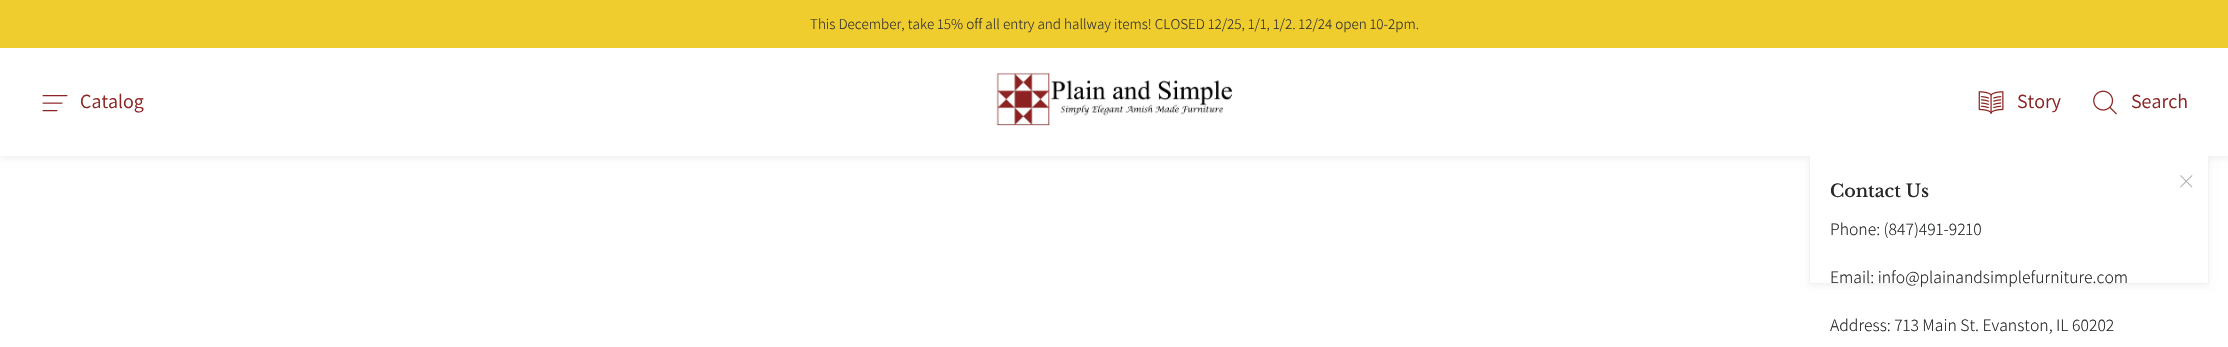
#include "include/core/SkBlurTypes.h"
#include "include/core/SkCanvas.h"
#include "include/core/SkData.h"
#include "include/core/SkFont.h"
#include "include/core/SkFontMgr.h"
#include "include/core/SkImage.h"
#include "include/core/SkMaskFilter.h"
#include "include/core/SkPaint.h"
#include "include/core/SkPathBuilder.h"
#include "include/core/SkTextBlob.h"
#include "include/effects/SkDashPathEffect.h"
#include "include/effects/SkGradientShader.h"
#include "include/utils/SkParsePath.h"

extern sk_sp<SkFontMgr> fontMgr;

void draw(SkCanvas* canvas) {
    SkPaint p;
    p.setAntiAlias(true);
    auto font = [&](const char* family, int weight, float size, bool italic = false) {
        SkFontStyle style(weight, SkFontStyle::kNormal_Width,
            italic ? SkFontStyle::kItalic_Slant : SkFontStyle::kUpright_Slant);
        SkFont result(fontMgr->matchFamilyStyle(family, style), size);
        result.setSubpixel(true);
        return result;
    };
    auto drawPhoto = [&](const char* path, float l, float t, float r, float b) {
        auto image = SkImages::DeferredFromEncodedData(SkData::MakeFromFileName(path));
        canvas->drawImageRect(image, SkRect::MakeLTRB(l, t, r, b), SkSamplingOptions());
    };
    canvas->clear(0xFFFFFFFF);
    p.setColor(0xFFF0CD2E);
    canvas->drawRect(SkRect::MakeLTRB(0, 0, 2228, 48), p);
    auto font1 = font("Assistant", 300, 15);
    p.setColor(0xFF313131);
    canvas->drawString("This December, take 15% off all entry and hallway items! CLOSED 12/25, 1/1, 1/2. 12/24 open 10-2pm.", 810, 29, font1, p);
    p.setColor(0x0D000000);
    p.setMaskFilter(SkMaskFilter::MakeBlur(kNormal_SkBlurStyle, 3));
    canvas->drawRect(SkRect::MakeLTRB(0, 50, 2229, 159), p);
    p.setMaskFilter(nullptr);
    p.setMaskFilter(SkMaskFilter::MakeBlur(kNormal_SkBlurStyle, 3));
    canvas->drawRect(SkRect::MakeLTRB(1809, 158, 2209, 286), p);
    p.setMaskFilter(nullptr);
    p.setColor(0xFFFFFFFF);
    canvas->drawRect(SkRect::MakeLTRB(1809.5f, 155.5f, 2208.5f, 283.5f), p);
    p.setStyle(SkPaint::kStroke_Style);
    p.setStrokeWidth(1);
    p.setColor(0xFFF2F2F2);
    canvas->drawRect(SkRect::MakeLTRB(1809.5f, 155.5f, 2208.5f, 283.5f), p);
    p.setStyle(SkPaint::kFill_Style);
    p.setColor(0xFFFFFFFF);
    canvas->drawRect(SkRect::MakeLTRB(0, 48, 2228, 156), p);
    drawPhoto("media/1.png", 42, 95, 68, 112);
    auto font2 = font("Assistant", 400, 20);
    p.setColor(0xFF8C2424);
    canvas->drawString("Catalog", 80, 108, font2, p);
    drawPhoto("media/2.png", 996, 72, 1233, 126);
    drawPhoto("media/3.png", 1978, 91, 2004, 114);
    canvas->drawString("Story", 2017, 108, font2, p);
    drawPhoto("media/4.png", 2093, 90, 2117, 115);
    canvas->drawString("Search", 2131, 108, font2, p);
    drawPhoto("media/5.png", 2180, 175, 2193, 188);
    auto font3 = font("Libre Baskerville", 500, 17.5f);
    p.setColor(0xFF26282A);
    canvas->drawString("Contact Us", 1830, 197, font3, p);
    auto font4 = font("Assistant", 300, 17.5f);
    {
        const struct { const char* s; float x, y; } items[] = {
            {"Phone: (847)491-9210", 1830, 235},
            {"Email: info@plainandsimplefurniture.com", 1830, 283},
            {"Address: 713 Main St. Evanston, IL 60202", 1830, 331},
        };
        for (auto [s, x, y] : items) {
            canvas->drawString(s, x, y, font4, p);
        }
    }
}
